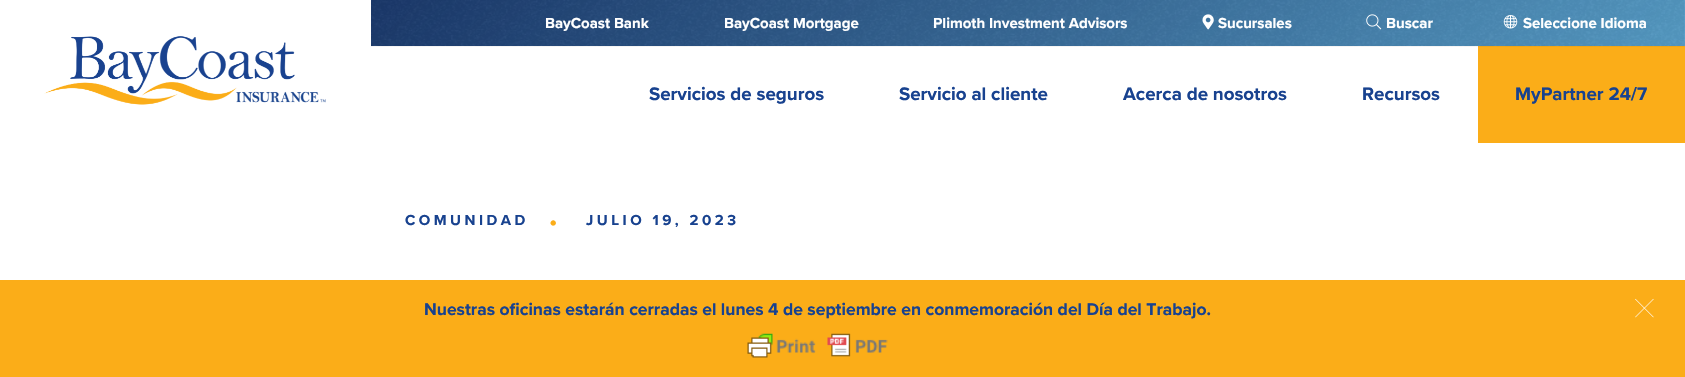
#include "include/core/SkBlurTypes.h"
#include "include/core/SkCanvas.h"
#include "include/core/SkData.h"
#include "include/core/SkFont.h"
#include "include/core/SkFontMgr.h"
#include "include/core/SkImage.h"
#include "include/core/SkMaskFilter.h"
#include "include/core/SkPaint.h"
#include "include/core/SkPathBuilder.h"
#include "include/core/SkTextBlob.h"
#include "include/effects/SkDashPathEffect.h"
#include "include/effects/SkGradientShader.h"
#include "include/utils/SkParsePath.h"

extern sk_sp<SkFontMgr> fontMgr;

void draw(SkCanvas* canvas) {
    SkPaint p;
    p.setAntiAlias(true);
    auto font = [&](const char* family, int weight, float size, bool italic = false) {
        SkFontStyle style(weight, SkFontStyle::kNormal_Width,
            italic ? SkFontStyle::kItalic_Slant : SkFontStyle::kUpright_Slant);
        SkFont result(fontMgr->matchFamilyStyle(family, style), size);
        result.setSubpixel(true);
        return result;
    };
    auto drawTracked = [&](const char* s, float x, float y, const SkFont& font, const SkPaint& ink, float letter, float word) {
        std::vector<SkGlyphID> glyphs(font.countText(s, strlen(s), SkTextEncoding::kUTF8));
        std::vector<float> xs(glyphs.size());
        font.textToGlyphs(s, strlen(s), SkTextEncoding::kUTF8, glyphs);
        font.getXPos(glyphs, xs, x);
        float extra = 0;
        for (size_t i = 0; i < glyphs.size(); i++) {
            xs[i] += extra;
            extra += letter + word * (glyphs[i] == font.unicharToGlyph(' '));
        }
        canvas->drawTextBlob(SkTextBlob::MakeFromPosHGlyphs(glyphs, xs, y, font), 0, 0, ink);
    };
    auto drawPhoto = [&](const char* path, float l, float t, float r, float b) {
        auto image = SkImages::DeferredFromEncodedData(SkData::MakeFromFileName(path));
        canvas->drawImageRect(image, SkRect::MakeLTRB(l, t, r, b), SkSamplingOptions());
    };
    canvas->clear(0xFFFFFFFF);
    drawPhoto("media/1.png", 44, 36, 326, 105);
    {
        const SkColor colors[] = {0xFF1E417C, 0xFF63B4E4};
        const float stops[] = {0, 1};
        const SkPoint ends[] = {{711, -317}, {1345, 363}};
        p.setShader(SkGradientShader::MakeLinear(ends, colors, stops, 2, SkTileMode::kClamp));
        p.setAlpha(255);
    }
    canvas->drawRect(SkRect::MakeLTRB(371, 0, 1685, 46), p);
    p.setShader(nullptr);
    p.setColor(0xFFFBAD18);
    canvas->drawRect(SkRect::MakeLTRB(1478, 46, 1685, 143), p);
    drawPhoto("media/2.png", 371, 0, 1685, 47);
    auto font1 = font("Proxima Nova", 700, 15);
    p.setColor(0xFFFFFFFF);
    {
        const struct { const char* s; float x, y; } items[] = {
            {"BayCoast Bank", 545, 28},
            {"BayCoast Mortgage", 724, 28},
            {"Plimoth Investment Advisors", 933, 28},
        };
        for (auto [s, x, y] : items) {
            canvas->drawString(s, x, y, font1, p);
        }
    }
    drawPhoto("media/3.png", 1202, 14, 1214, 30);
    canvas->drawString("Sucursales", 1218, 28, font1, p);
    drawPhoto("media/4.png", 1366, 14, 1382, 30);
    canvas->drawString("Buscar", 1386, 28, font1, p);
    drawPhoto("media/5.png", 1503, 15, 1518, 29);
    canvas->drawString("Seleccione Idioma", 1523, 28, font1, p);
    auto font2 = font("Proxima Nova", 700, 18.75f);
    p.setColor(0xFF18428F);
    {
        const struct { const char* s; float x, y; } items[] = {
            {"Servicios de seguros", 649, 100},
            {"Servicio al cliente", 899, 100},
            {"Acerca de nosotros", 1123, 100},
            {"Recursos", 1362, 100},
            {"MyPartner 24/7", 1515, 100},
        };
        for (auto [s, x, y] : items) {
            canvas->drawString(s, x, y, font2, p);
        }
    }
    drawTracked("COMUNIDAD", 405, 225, font1, p, 3.5f, 0);
    auto font3 = font("Proxima Nova", 700, 33);
    p.setColor(0xFFFBAD18);
    drawTracked("·", 549, 231, font3, p, 8, 0);
    p.setColor(0xFF18428F);
    drawTracked("JULIO 19, 2023", 586, 225, font1, p, 3.5f, 0);
    p.setColor(0xFFFBAD18);
    canvas->drawRect(SkRect::MakeLTRB(0, 280, 1685, 377), p);
    auto font4 = font("Proxima Nova", 700, 17.5f);
    p.setColor(0xFF18428F);
    canvas->drawString("Nuestras oficinas estarán cerradas el lunes 4 de septiembre en conmemoración del Día del Trabajo.", 424, 315, font4, p);
    drawPhoto("media/6.png", 747, 333, 888, 358);
    drawPhoto("media/7.png", 1635, 298, 1654, 318);
}
